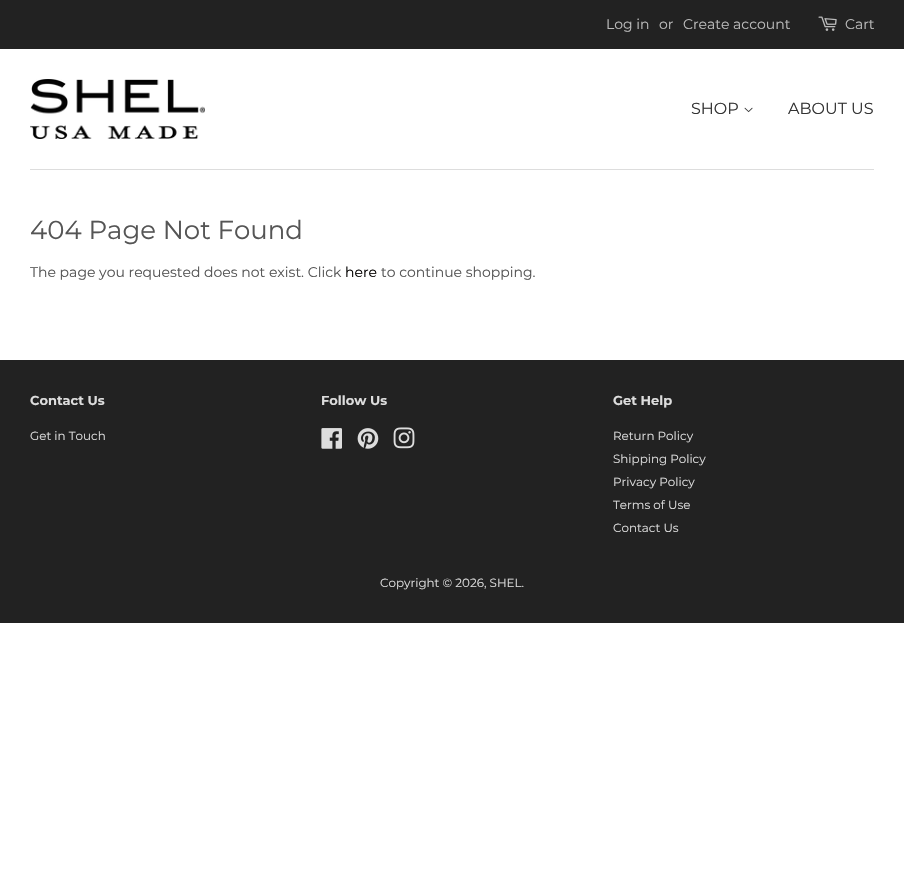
#include "include/core/SkBlurTypes.h"
#include "include/core/SkCanvas.h"
#include "include/core/SkData.h"
#include "include/core/SkFont.h"
#include "include/core/SkFontMgr.h"
#include "include/core/SkImage.h"
#include "include/core/SkMaskFilter.h"
#include "include/core/SkPaint.h"
#include "include/core/SkPathBuilder.h"
#include "include/core/SkTextBlob.h"
#include "include/effects/SkDashPathEffect.h"
#include "include/effects/SkGradientShader.h"
#include "include/utils/SkParsePath.h"

extern sk_sp<SkFontMgr> fontMgr;

void draw(SkCanvas* canvas) {
    SkPaint p;
    p.setAntiAlias(true);
    auto font = [&](const char* family, int weight, float size, bool italic = false) {
        SkFontStyle style(weight, SkFontStyle::kNormal_Width,
            italic ? SkFontStyle::kItalic_Slant : SkFontStyle::kUpright_Slant);
        SkFont result(fontMgr->matchFamilyStyle(family, style), size);
        result.setSubpixel(true);
        return result;
    };
    auto drawPhoto = [&](const char* path, float l, float t, float r, float b) {
        auto image = SkImages::DeferredFromEncodedData(SkData::MakeFromFileName(path));
        canvas->drawImageRect(image, SkRect::MakeLTRB(l, t, r, b), SkSamplingOptions());
    };
    canvas->clear(0xFFFFFFFF);
    p.setColor(0xFF222222);
    canvas->drawRect(SkRect::MakeLTRB(0, 0, 904, 49), p);
    auto font1 = font("Montserrat", 400, 14);
    p.setColor(0xFFBBBBBB);
    {
        const struct { const char* s; float x, y; } items[] = {
            {"Log in", 606, 29},
            {"or", 659, 29},
            {"Create account", 683, 29},
        };
        for (auto [s, x, y] : items) {
            canvas->drawString(s, x, y, font1, p);
        }
    }
    drawPhoto("media/1.png", 818, 16, 837, 31);
    canvas->drawString("Cart", 845, 29, font1, p);
    p.setColor(0xFFDDDDDD);
    canvas->drawRect(SkRect::MakeLTRB(30, 169, 874, 170), p);
    drawPhoto("media/2.png", 30, 79, 205, 139);
    auto font2 = font("Montserrat", 400, 16);
    p.setColor(0xFF333333);
    canvas->drawString("SHOP", 691, 114, font2, p);
    drawPhoto("media/3.png", 744, 107, 753, 113);
    canvas->drawString("ABOUT US", 788, 114, font2, p);
    auto font3 = font("Montserrat", 400, 26);
    p.setColor(0xFF555555);
    canvas->drawString("404 Page Not Found", 30, 239, font3, p);
    canvas->drawString("The page you requested does not exist. Click", 30, 277, font1, p);
    p.setColor(0xFF030100);
    canvas->drawString("here", 345, 277, font1, p);
    p.setColor(0xFF555555);
    canvas->drawString("to continue shopping.", 381, 277, font1, p);
    p.setColor(0xFF222222);
    canvas->drawRect(SkRect::MakeLTRB(0, 360, 904, 623), p);
    auto font4 = font("Montserrat", 700, 13);
    p.setColor(0xFFDDDDDD);
    canvas->drawString("Contact Us", 30, 405, font4, p);
    auto font5 = font("Montserrat", 400, 11.9f);
    canvas->drawString("Get in Touch", 30, 440, font5, p);
    canvas->drawString("Follow Us", 321, 405, font4, p);
    drawPhoto("media/4.png", 321, 428, 342, 449);
    drawPhoto("media/5.png", 357, 428, 379, 449);
    drawPhoto("media/6.png", 393, 427, 415, 449);
    canvas->drawString("Get Help", 613, 405, font4, p);
    {
        const struct { const char* s; float x, y; } items[] = {
            {"Return Policy", 613, 440},
            {"Shipping Policy", 613, 463},
            {"Privacy Policy", 613, 486},
            {"Terms of Use", 613, 509},
            {"Contact Us", 613, 532},
            {"Copyright © 2026, SHEL.", 380, 587},
        };
        for (auto [s, x, y] : items) {
            canvas->drawString(s, x, y, font5, p);
        }
    }
}
